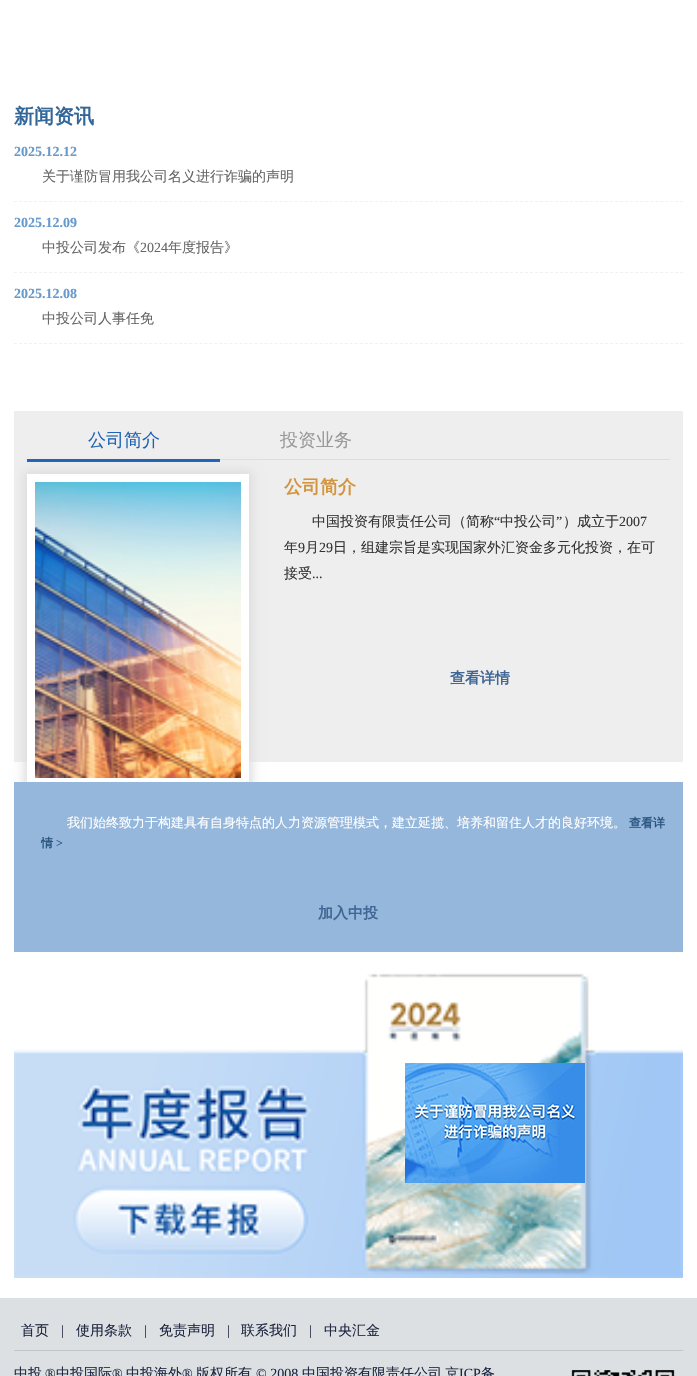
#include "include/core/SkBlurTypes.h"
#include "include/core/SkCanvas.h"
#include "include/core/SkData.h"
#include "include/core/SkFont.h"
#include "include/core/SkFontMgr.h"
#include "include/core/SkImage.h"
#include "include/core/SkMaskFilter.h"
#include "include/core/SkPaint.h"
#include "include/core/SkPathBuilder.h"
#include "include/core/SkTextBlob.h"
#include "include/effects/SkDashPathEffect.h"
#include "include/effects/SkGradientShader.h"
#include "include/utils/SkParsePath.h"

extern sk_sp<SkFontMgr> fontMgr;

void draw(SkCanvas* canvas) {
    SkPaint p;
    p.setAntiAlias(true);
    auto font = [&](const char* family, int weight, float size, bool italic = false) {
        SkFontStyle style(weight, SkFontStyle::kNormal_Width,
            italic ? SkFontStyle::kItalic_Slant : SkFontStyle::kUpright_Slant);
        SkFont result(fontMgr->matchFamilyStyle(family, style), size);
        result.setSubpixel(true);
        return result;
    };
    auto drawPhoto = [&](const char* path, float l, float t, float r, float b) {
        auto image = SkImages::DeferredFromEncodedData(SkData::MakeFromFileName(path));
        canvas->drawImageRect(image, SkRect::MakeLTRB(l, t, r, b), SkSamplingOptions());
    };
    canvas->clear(0xFFFFFFFF);
    auto font1 = font("WenQuanYi Zen Hei", 700, 20);
    p.setColor(0xFF336699);
    canvas->drawString("新闻资讯", 14, 123, font1, p);
    p.setStyle(SkPaint::kStroke_Style);
    p.setStrokeWidth(1);
    p.setColor(0xFFF1F1F1);
    p.setPathEffect(SkDashPathEffect::Make({{3, 2.01f}}, 0));
    canvas->drawPath(SkPathBuilder().moveTo(14, 201.5f).lineTo(683, 201.5f).detach(), p);
    p.setPathEffect(nullptr);
    auto font2 = font("Liberation Serif", 700, 14);
    p.setStyle(SkPaint::kFill_Style);
    p.setColor(0xFF6699CC);
    canvas->drawString("2025.12.12", 14, 156, font2, p);
    auto font3 = font("WenQuanYi Zen Hei", 500, 14);
    p.setColor(0xFF666666);
    canvas->drawString("关于谨防冒用我公司名义进行诈骗的声明", 42, 181, font3, p);
    p.setStyle(SkPaint::kStroke_Style);
    p.setColor(0xFFF1F1F1);
    p.setPathEffect(SkDashPathEffect::Make({{3, 2.01f}}, 0));
    canvas->drawPath(SkPathBuilder().moveTo(14, 272.5f).lineTo(683, 272.5f).detach(), p);
    p.setPathEffect(nullptr);
    p.setStyle(SkPaint::kFill_Style);
    p.setColor(0xFF6699CC);
    canvas->drawString("2025.12.09", 14, 227, font2, p);
    p.setColor(0xFF666666);
    canvas->drawString("中投公司发布《", 42, 252, font3, p);
    auto font4 = font("Liberation Serif", 400, 14);
    canvas->drawString("2024", 140, 252, font4, p);
    canvas->drawString("年度报告》", 168, 252, font3, p);
    p.setStyle(SkPaint::kStroke_Style);
    p.setColor(0xFFF1F1F1);
    p.setPathEffect(SkDashPathEffect::Make({{3, 2.01f}}, 0));
    canvas->drawPath(SkPathBuilder().moveTo(14, 343.5f).lineTo(683, 343.5f).detach(), p);
    p.setPathEffect(nullptr);
    p.setStyle(SkPaint::kFill_Style);
    p.setColor(0xFF6699CC);
    canvas->drawString("2025.12.08", 14, 298, font2, p);
    p.setColor(0xFF666666);
    canvas->drawString("中投公司人事任免", 42, 323, font3, p);
    {
        const struct { float l, t, r, b; SkColor color; } items[] = {
            {14, 411, 683, 762, 0xFFEEEEEE},
            {220, 459, 670, 460, 0xFFDDDDDD},
            {27, 459, 220, 462, 0xFF2063B4},
        };
        for (auto [l, t, r, b, color] : items) {
            p.setColor(color);
            canvas->drawRect(SkRect::MakeLTRB(l, t, r, b), p);
        }
    }
    auto font5 = font("WenQuanYi Zen Hei", 500, 18);
    canvas->drawString("公司简介", 88, 446, font5, p);
    p.setColor(0xFFDCDCDC);
    p.setMaskFilter(SkMaskFilter::MakeBlur(kNormal_SkBlurStyle, 5));
    canvas->drawRect(SkRect::MakeLTRB(24, 471, 252, 789), p);
    p.setMaskFilter(nullptr);
    p.setColor(0xFFFFFFFF);
    canvas->drawRect(SkRect::MakeLTRB(27, 474, 249, 782), p);
    drawPhoto("media/1.png", 35, 482, 241, 778);
    auto font6 = font("WenQuanYi Zen Hei", 700, 18);
    p.setColor(0xFFD3953D);
    canvas->drawString("公司简介", 284, 493, font6, p);
    p.setColor(0xFF333333);
    canvas->drawString("中国投资有限责任公司（简称", 312, 526, font3, p);
    canvas->drawString("“", 494, 526, font4, p);
    canvas->drawString("中投公司", 500, 526, font3, p);
    canvas->drawString("”", 556, 526, font4, p);
    canvas->drawString("）成立于", 563, 526, font3, p);
    canvas->drawString("2007", 619, 526, font4, p);
    canvas->drawString("年", 284, 552, font3, p);
    canvas->drawString("9", 298, 552, font4, p);
    canvas->drawString("月", 305, 552, font3, p);
    canvas->drawString("29", 319, 552, font4, p);
    canvas->drawString("日，组建宗旨是实现国家外汇资金多元化投资，在可", 333, 552, font3, p);
    canvas->drawString("接受", 284, 578, font3, p);
    canvas->drawString("...", 312, 578, font4, p);
    auto font7 = font("WenQuanYi Zen Hei", 700, 15);
    p.setColor(0xFF3F6695);
    canvas->drawString("查看详情", 450, 683, font7, p);
    p.setColor(0xFF999999);
    canvas->drawString("投资业务", 280, 446, font5, p);
    p.setColor(0xFF95B7DC);
    canvas->drawRect(SkRect::MakeLTRB(14, 782, 683, 952), p);
    auto font8 = font("WenQuanYi Zen Hei", 500, 13);
    p.setColor(0xFFFFFFFF);
    canvas->drawString("我们始终致力于构建具有自身特点的人力资源管理模式，建立延揽、培养和留住人才的良好环境。", 67, 827, font8, p);
    auto font9 = font("WenQuanYi Zen Hei", 700, 12);
    p.setColor(0xFF2B5681);
    canvas->drawString("查看详", 629, 827, font9, p);
    canvas->drawString("情", 41, 847, font9, p);
    auto font10 = font("Liberation Serif", 700, 12);
    canvas->drawString(">", 56, 847, font10, p);
    p.setColor(0xFF3F6695);
    canvas->drawString("加入中投", 318, 918, font7, p);
    drawPhoto("media/2.png", 14, 973, 683, 1278);
    p.setColor(0xFFDCE0E3);
    canvas->drawRect(SkRect::MakeLTRB(0, 1298, 697, 1376), p);
    p.setColor(0xFF1E263F);
    canvas->drawString("首页", 21, 1335, font3, p);
    canvas->drawString("|", 61, 1335, font4, p);
    canvas->drawString("使用条款", 76, 1335, font3, p);
    canvas->drawString("|", 144, 1335, font4, p);
    canvas->drawString("免责声明", 159, 1335, font3, p);
    canvas->drawString("|", 227, 1335, font4, p);
    canvas->drawString("联系我们", 241, 1335, font3, p);
    canvas->drawString("|", 309, 1335, font4, p);
    canvas->drawString("中央汇金", 324, 1335, font3, p);
    p.setColor(0xFFC7C4C4);
    canvas->drawRect(SkRect::MakeLTRB(14, 1350, 683, 1351), p);
    p.setColor(0xFF1E263F);
    canvas->drawString("中投", 14, 1378, font3, p);
    canvas->drawString("®", 45, 1378, font4, p);
    canvas->drawString("中投国际", 56, 1378, font3, p);
    canvas->drawString("®", 112, 1378, font4, p);
    canvas->drawString("中投海外", 126, 1378, font3, p);
    canvas->drawString("®", 182, 1378, font4, p);
    canvas->drawString("版权所有", 196, 1378, font3, p);
    canvas->drawString("© 2008", 256, 1378, font4, p);
    canvas->drawString("中国投资有限责任公司", 302, 1378, font3, p);
    canvas->drawString("京", 445, 1378, font3, p);
    canvas->drawString("ICP", 459, 1378, font4, p);
    canvas->drawString("备", 481, 1378, font3, p);
    drawPhoto("media/3.png", 571, 1369, 675, 1376);
    drawPhoto("media/4.png", 405, 1063, 585, 1183);
}
